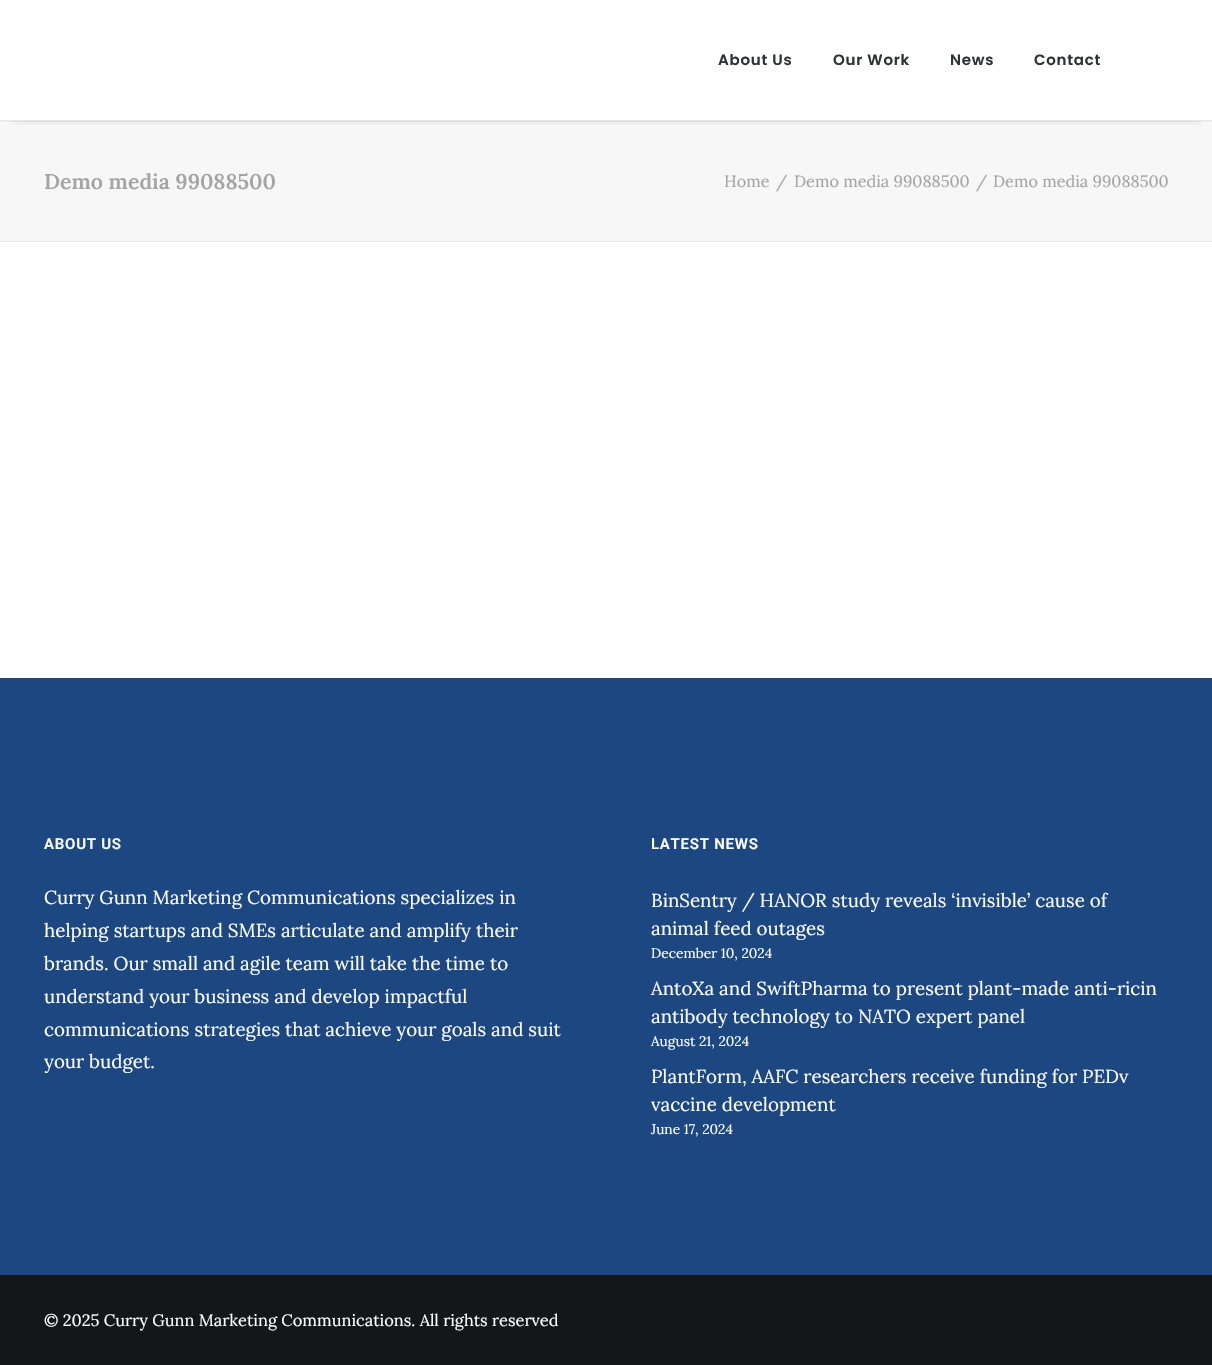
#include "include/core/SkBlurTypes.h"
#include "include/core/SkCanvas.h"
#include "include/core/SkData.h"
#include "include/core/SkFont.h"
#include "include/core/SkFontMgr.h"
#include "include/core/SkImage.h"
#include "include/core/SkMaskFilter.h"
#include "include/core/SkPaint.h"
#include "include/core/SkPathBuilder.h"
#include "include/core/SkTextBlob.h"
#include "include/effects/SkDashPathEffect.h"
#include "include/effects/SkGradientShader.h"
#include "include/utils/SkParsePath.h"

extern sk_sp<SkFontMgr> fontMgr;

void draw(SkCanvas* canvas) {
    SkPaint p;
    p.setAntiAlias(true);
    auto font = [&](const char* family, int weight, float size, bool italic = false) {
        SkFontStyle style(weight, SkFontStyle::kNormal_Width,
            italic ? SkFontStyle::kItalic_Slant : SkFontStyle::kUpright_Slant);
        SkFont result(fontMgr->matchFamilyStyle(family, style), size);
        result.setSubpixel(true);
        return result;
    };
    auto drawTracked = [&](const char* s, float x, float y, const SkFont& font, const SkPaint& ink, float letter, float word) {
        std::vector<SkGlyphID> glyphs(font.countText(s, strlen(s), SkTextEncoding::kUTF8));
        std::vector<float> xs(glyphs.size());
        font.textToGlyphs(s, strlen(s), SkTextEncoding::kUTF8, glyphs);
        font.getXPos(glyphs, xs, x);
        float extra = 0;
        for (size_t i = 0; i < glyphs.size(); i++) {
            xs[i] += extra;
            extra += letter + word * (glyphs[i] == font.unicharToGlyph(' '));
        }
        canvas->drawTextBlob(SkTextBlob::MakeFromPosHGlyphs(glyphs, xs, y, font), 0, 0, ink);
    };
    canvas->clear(0xFFFFFFFF);
    p.setColor(0xFFF7F7F7);
    canvas->drawRect(SkRect::MakeLTRB(0, 123, 1212, 241), p);
    p.setColor(0xFFEAEAEA);
    canvas->drawRect(SkRect::MakeLTRB(0, 121, 1212, 122), p);
    canvas->save();
    canvas->clipRect(SkRect::MakeLTRB(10, 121, 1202, 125));
    p.setColor(0x99000000);
    p.setMaskFilter(SkMaskFilter::MakeBlur(kNormal_SkBlurStyle, 6));
    canvas->drawRect(SkRect::MakeLTRB(11, 18, 1201, 114), p);
    p.setMaskFilter(nullptr);
    canvas->restore();
    p.setColor(0xFFEAEAEA);
    canvas->drawRect(SkRect::MakeLTRB(0, 120, 1212, 121), p);
    auto font1 = font("Poppins", 600, 15);
    p.setColor(0xFF303133);
    {
        const struct { const char* s; float x, y; } items[] = {
            {"About Us", 718, 65},
            {"Our Work", 833, 65},
            {"News", 950, 65},
            {"Contact", 1034, 65},
        };
        for (auto [s, x, y] : items) {
            drawTracked(s, x, y, font1, p, 0.75f, 0);
        }
    }
    p.setColor(0xFFEAEAEA);
    canvas->drawRect(SkRect::MakeLTRB(0, 241, 1212, 242), p);
    auto font2 = font("Lora", 600, 21.25f);
    p.setColor(0xFFA4A4A4);
    canvas->drawString("Demo media 99088500", 44, 189, font2, p);
    auto font3 = font("Lora", 400, 16.25f);
    {
        const struct { const char* s; float x, y; } items[] = {
            {"Home", 724, 187},
            {"/", 776, 187},
            {"Demo media 99088500", 794, 187},
            {"/", 976, 187},
            {"Demo media 99088500", 993, 187},
        };
        for (auto [s, x, y] : items) {
            canvas->drawString(s, x, y, font3, p);
        }
    }
    p.setColor(0xFF1C4781);
    canvas->drawRect(SkRect::MakeLTRB(0, 678, 1212, 1275), p);
    auto font4 = font("Roboto", 600, 15);
    p.setColor(0xFFFFFFFF);
    drawTracked("ABOUT US", 44, 849, font4, p, 0.75f, 0);
    auto font5 = font("Lora", 400, 18.75f);
    {
        const struct { const char* s; float x, y; } items[] = {
            {"Curry Gunn Marketing Communications specializes in", 44, 904},
            {"helping startups and SMEs articulate and amplify their", 44, 937},
            {"brands. Our small and agile team will take the time to", 44, 970},
            {"understand your business and develop impactful", 44, 1003},
            {"communications strategies that achieve your goals and suit", 44, 1036},
            {"your budget.", 44, 1068},
        };
        for (auto [s, x, y] : items) {
            canvas->drawString(s, x, y, font5, p);
        }
    }
    drawTracked("LATEST NEWS", 651, 849, font4, p, 0.75f, 0);
    canvas->drawString("BinSentry / HANOR study reveals ‘invisible’ cause of", 651, 907, font5, p);
    canvas->drawString("animal feed outages", 651, 935, font5, p);
    auto font6 = font("Lora", 400, 13.75f);
    canvas->drawString("December 10, 2024", 651, 958, font6, p);
    canvas->drawString("AntoXa and SwiftPharma to present plant-made anti-ricin", 651, 995, font5, p);
    canvas->drawString("antibody technology to NATO expert panel", 651, 1023, font5, p);
    canvas->drawString("August 21, 2024", 651, 1046, font6, p);
    canvas->drawString("PlantForm, AAFC researchers receive funding for PEDv", 651, 1083, font5, p);
    canvas->drawString("vaccine development", 651, 1111, font5, p);
    canvas->drawString("June 17, 2024", 651, 1134, font6, p);
    p.setColor(0xFF141618);
    canvas->drawRect(SkRect::MakeLTRB(0, 1275, 1212, 1365), p);
    auto font7 = font("Lora", 400, 16.4f);
    p.setColor(0xFFFFFFFF);
    canvas->drawString("© 2025 Curry Gunn Marketing Communications. All rights reserved", 44, 1326, font7, p);
}
